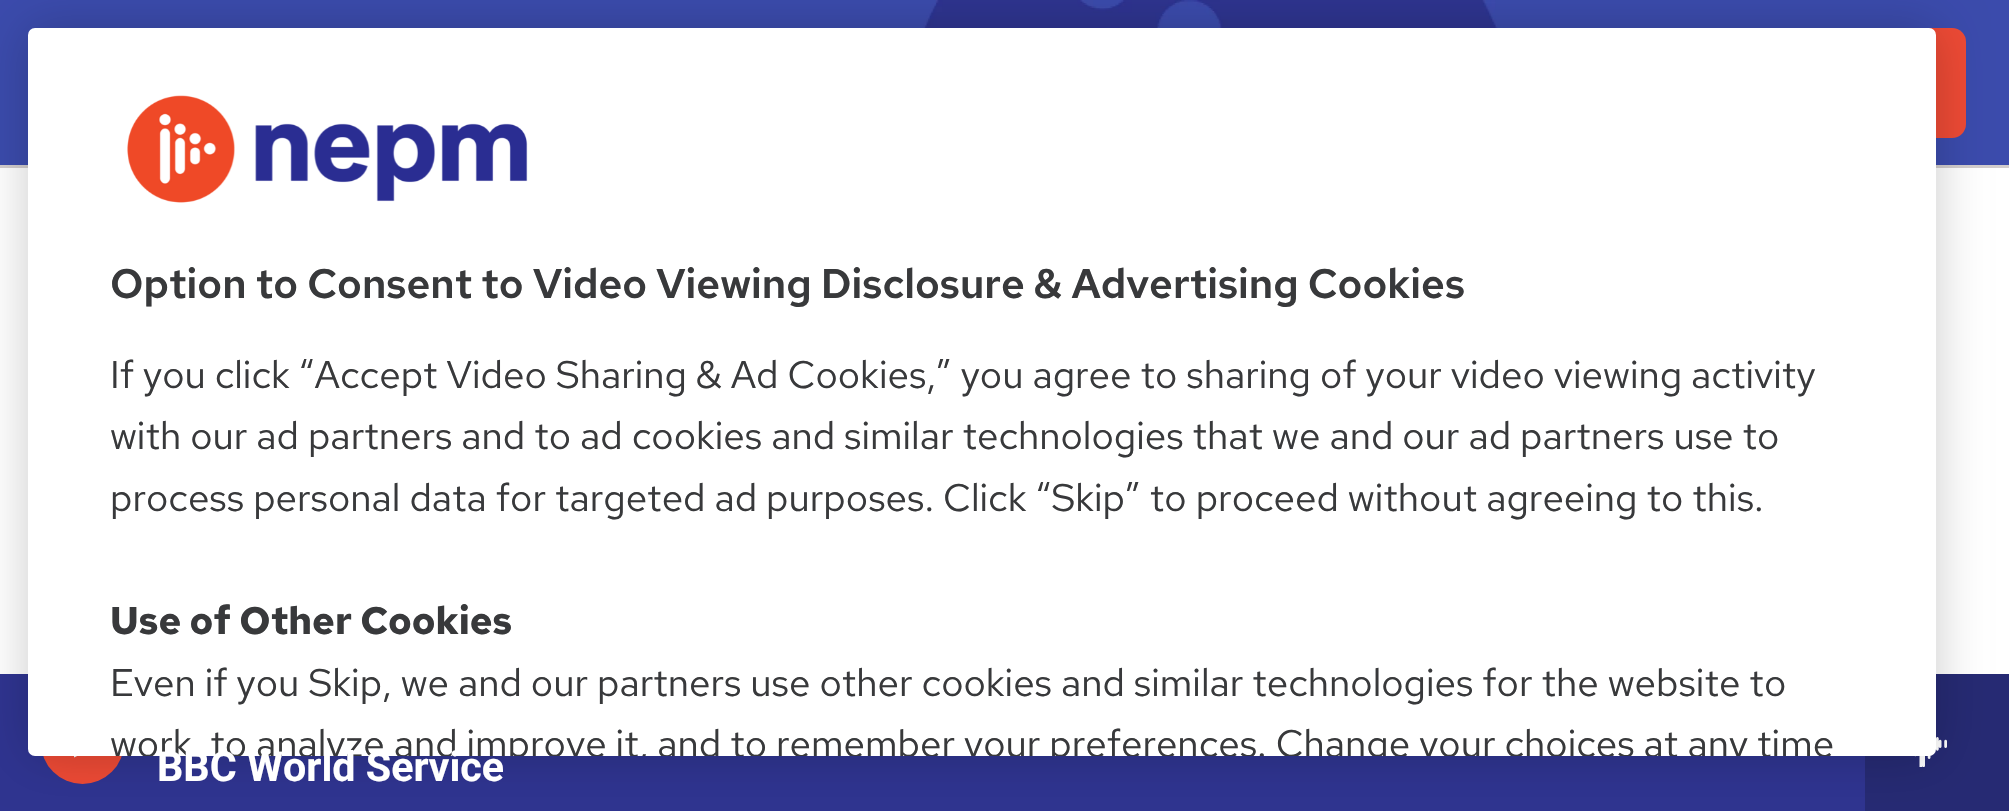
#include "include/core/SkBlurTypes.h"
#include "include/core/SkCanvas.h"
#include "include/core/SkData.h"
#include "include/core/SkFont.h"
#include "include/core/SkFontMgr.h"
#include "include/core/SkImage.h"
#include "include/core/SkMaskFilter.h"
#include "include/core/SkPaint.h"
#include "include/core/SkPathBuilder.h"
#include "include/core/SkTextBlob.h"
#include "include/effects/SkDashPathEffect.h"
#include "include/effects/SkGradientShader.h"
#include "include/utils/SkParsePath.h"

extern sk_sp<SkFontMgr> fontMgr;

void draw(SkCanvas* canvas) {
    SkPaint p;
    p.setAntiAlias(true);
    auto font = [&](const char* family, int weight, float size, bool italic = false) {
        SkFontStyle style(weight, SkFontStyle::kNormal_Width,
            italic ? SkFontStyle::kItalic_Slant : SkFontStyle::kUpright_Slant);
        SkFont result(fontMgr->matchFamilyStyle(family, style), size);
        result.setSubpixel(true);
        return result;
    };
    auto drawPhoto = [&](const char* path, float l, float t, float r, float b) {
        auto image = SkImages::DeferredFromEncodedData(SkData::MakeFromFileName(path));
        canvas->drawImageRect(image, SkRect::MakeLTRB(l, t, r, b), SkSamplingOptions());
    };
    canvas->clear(0xFFFFFFFF);
    p.setColor(0xFFD2CDCD);
    canvas->drawRect(SkRect::MakeLTRB(0, 165, 2009, 168), p);
    drawPhoto("media/2.png", 0, 0, 2009, 165);
    p.setColor(0xFFED4A35);
    canvas->drawRoundRect(SkRect::MakeLTRB(1658, 28, 1966, 138), 14, 14, p);
    p.setColor(0xFF2F3490);
    canvas->drawRect(SkRect::MakeLTRB(0, 674, 1865, 811), p);
    p.setColor(0xFFED4A35);
    canvas->drawCircle(82.5f, 742.5f, 41.5f, p);
    p.setColor(0xFFFFFFFF);
    canvas->drawPath(SkPathBuilder().moveTo(74, 730).lineTo(102, 744).lineTo(74, 757.5f).close().detach(), p);
    p.setColor(0xFF262A73);
    canvas->drawRect(SkRect::MakeLTRB(1865, 674, 2009, 811), p);
    drawPhoto("media/3.png", 1914, 737, 1947, 767);
    p.setColor(0x33000000);
    p.setMaskFilter(SkMaskFilter::MakeBlur(kNormal_SkBlurStyle, 25));
    canvas->drawRoundRect(SkRect::MakeLTRB(28, 28, 1936, 756), 7, 7, p);
    p.setMaskFilter(nullptr);
    p.setColor(0xFFFFFFFF);
    canvas->drawRoundRect(SkRect::MakeLTRB(28, 28, 1936, 756), 7, 7, p);
    drawPhoto("media/1.png", 127, 95, 528, 203);
    auto font1 = font("Red Hat Text", 600, 41.25f);
    p.setColor(0xFF38393B);
    canvas->drawString("Option to Consent to Video Viewing Disclosure & Advertising Cookies", 110, 298, font1, p);
    auto font2 = font("Red Hat Text", 400, 38.5f);
    {
        const struct { const char* s; float x, y; } items[] = {
            {"If you click “Accept Video Sharing & Ad Cookies,” you agree to sharing of your video viewing activity", 110, 388},
            {"with our ad partners and to ad cookies and similar technologies that we and our ad partners use to", 110, 449},
            {"process personal data for targeted ad purposes. Click “Skip” to proceed without agreeing to this.", 110, 511},
        };
        for (auto [s, x, y] : items) {
            canvas->drawString(s, x, y, font2, p);
        }
    }
    auto font3 = font("Red Hat Text", 700, 38.5f);
    canvas->drawString("Use of Other Cookies", 110, 634, font3, p);
    canvas->drawString("Even if you Skip, we and our partners use other cookies and similar technologies for the website to", 110, 696, font2, p);
    canvas->save();
    canvas->clipPath(SkPathBuilder().moveTo(35, 28).lineTo(1929, 28).cubicTo(1933, 28, 1936, 31, 1936, 35).lineTo(1936, 749).cubicTo(1936, 753, 1933, 756, 1929, 756).lineTo(35, 756).cubicTo(31, 756, 28, 753, 28, 749).lineTo(28, 35).cubicTo(28, 31, 31, 28, 35, 28).close().detach(), true);
    canvas->drawString("work, to analyze and improve it, and to remember your preferences. Change your choices at any time", 110, 757, font2, p);
    canvas->restore();
    auto font4 = font("Roboto", 700, 41.25f);
    p.setColor(0xFFFFFFFF);
    canvas->drawString("BBC World Service", 157, 781, font4, p);
}
